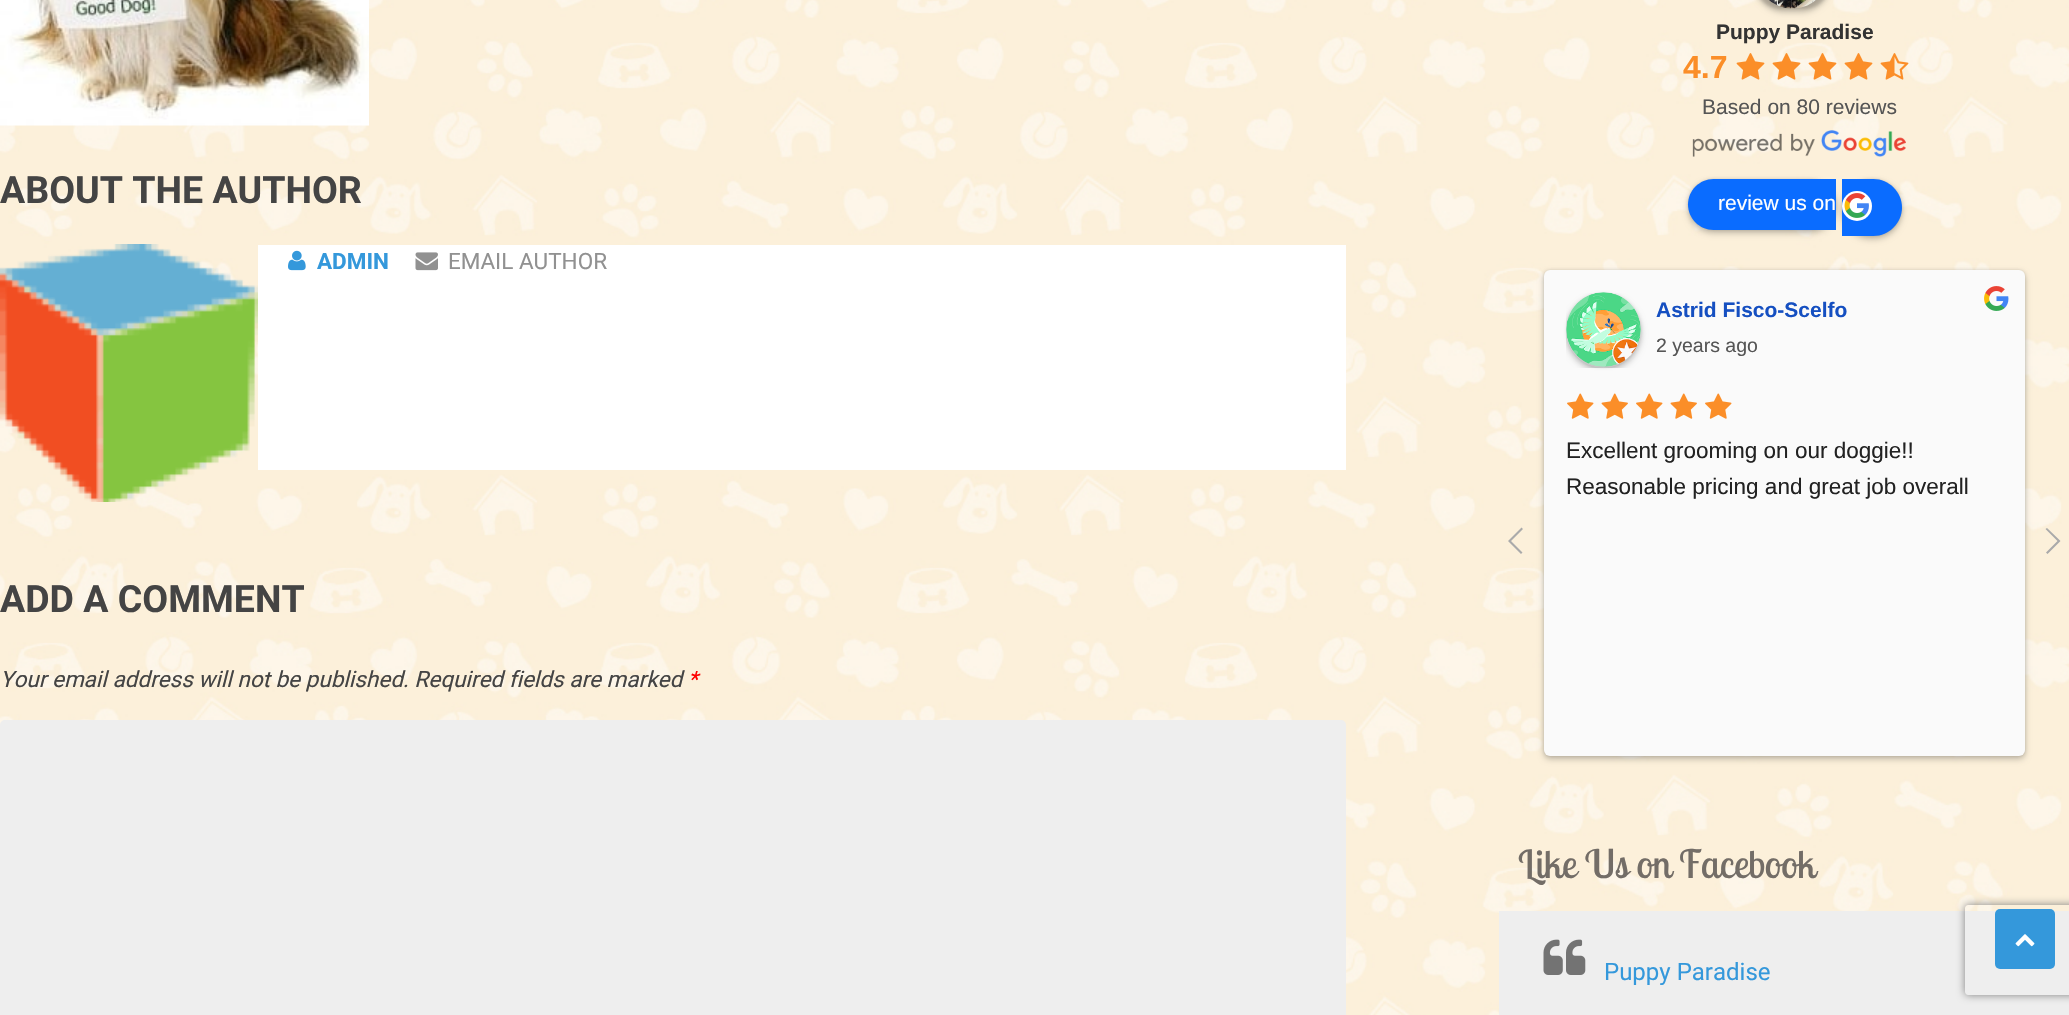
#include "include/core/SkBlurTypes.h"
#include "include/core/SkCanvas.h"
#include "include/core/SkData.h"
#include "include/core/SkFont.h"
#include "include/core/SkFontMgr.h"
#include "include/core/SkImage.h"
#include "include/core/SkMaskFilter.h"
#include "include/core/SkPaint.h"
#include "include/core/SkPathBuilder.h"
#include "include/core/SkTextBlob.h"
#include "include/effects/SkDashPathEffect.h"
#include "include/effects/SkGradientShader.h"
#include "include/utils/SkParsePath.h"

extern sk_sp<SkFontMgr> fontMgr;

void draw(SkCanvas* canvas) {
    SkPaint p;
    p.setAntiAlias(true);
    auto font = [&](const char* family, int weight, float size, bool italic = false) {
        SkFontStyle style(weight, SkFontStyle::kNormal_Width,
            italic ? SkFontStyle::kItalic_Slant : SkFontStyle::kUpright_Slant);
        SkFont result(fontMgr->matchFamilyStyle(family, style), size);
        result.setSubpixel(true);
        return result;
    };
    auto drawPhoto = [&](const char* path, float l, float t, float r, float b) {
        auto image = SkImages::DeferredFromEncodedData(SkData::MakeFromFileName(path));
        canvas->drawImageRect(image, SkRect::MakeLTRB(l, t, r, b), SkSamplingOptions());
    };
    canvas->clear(0xFFFFFFFF);
    drawPhoto("media/1.png", 0, 0, 2069, 1015);
    drawPhoto("media/2.png", 0, 0, 369, 126);
    auto font1 = font("Roboto", 700, 37.5f);
    p.setColor(0xFF444444);
    canvas->drawString("ABOUT THE AUTHOR", 0, 203, font1, p);
    drawPhoto("media/3.png", 0, 244, 258, 502);
    p.setColor(0xFFFFFFFF);
    canvas->drawRect(SkRect::MakeLTRB(258, 245, 1346, 470), p);
    drawPhoto("media/4.png", 288, 250, 306, 271);
    auto font2 = font("Roboto", 700, 22.5f);
    p.setColor(0xFF3498DB);
    canvas->drawString("ADMIN", 317, 269, font2, p);
    drawPhoto("media/5.png", 415, 252, 438, 271);
    auto font3 = font("Roboto", 400, 22.5f);
    p.setColor(0xFF919191);
    canvas->drawString("EMAIL AUTHOR", 448, 269, font3, p);
    p.setColor(0xFF444444);
    canvas->drawString("ADD A COMMENT", 0, 612, font1, p);
    auto font4 = font("Roboto", 400, 22.5f, true);
    canvas->drawString("Your email address will not be published. Required fields are marked", 0, 687, font4, p);
    p.setColor(0xFFFF0000);
    canvas->drawString("*", 688, 687, font4, p);
    p.setColor(0xFFEEEEEE);
    canvas->drawRoundRect(SkRect::MakeLTRB(1, 721, 1345, 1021), 4, 4, p);
    p.setStyle(SkPaint::kStroke_Style);
    p.setStrokeWidth(2);
    canvas->drawRoundRect(SkRect::MakeLTRB(1, 721, 1345, 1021), 4, 4, p);
    p.setStyle(SkPaint::kFill_Style);
    p.setColor(0x3D000000);
    p.setMaskFilter(SkMaskFilter::MakeBlur(kNormal_SkBlurStyle, 3));
    canvas->drawRoundRect(SkRect::MakeLTRB(1755, -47, 1830, 12), 37.5f, 37.5f, p);
    p.setMaskFilter(nullptr);
    p.setColor(0x1F000000);
    p.setMaskFilter(SkMaskFilter::MakeBlur(kNormal_SkBlurStyle, 1.5f));
    canvas->drawRoundRect(SkRect::MakeLTRB(1755, -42, 1830, 9), 37.5f, 37.5f, p);
    p.setMaskFilter(nullptr);
    drawPhoto("media/6.png", 1769, 0, 1816, 9);
    auto font5 = font("Liberation Sans", 700, 21);
    p.setColor(0xFF333333);
    canvas->drawString("Puppy Paradise", 1716, 39, font5, p);
    auto font6 = font("Liberation Sans", 700, 32);
    p.setColor(0xFFFB8E28);
    canvas->drawString("4.7", 1683, 78, font6, p);
    drawPhoto("media/7.png", 1736, 53, 1765, 80);
    drawPhoto("media/8.png", 1772, 53, 1801, 80);
    drawPhoto("media/9.png", 1808, 53, 1837, 80);
    drawPhoto("media/10.png", 1844, 53, 1873, 80);
    drawPhoto("media/11.png", 1880, 53, 1909, 80);
    auto font7 = font("Liberation Sans", 400, 21);
    p.setColor(0xFF555555);
    canvas->drawString("Based on 80 reviews", 1702, 114, font7, p);
    drawPhoto("media/12.png", 1692, 130, 1906, 157);
    p.setColor(0x3D000000);
    p.setMaskFilter(SkMaskFilter::MakeBlur(kNormal_SkBlurStyle, 3));
    canvas->drawRoundRect(SkRect::MakeLTRB(1688, 182, 1836, 233), 25.5f, 25.5f, p);
    p.setMaskFilter(nullptr);
    p.setColor(0x1F000000);
    p.setMaskFilter(SkMaskFilter::MakeBlur(kNormal_SkBlurStyle, 1.5f));
    canvas->drawRoundRect(SkRect::MakeLTRB(1688, 179, 1836, 230), 25.5f, 25.5f, p);
    p.setMaskFilter(nullptr);
    p.setColor(0xFF0A6CFF);
    canvas->drawPath(SkPathBuilder().moveTo(1713.5f, 179).lineTo(1836, 179).lineTo(1836, 230).lineTo(1713.5f, 230).cubicTo(1699.5f, 230, 1688, 218.5f, 1688, 204.5f).cubicTo(1688, 190.5f, 1699.5f, 179, 1713.5f, 179).close().detach(), p);
    p.setColor(0x3D000000);
    p.setMaskFilter(SkMaskFilter::MakeBlur(kNormal_SkBlurStyle, 3));
    canvas->drawRoundRect(SkRect::MakeLTRB(1842, 182, 1902, 239), 28.5f, 28.5f, p);
    p.setMaskFilter(nullptr);
    p.setColor(0x1F000000);
    p.setMaskFilter(SkMaskFilter::MakeBlur(kNormal_SkBlurStyle, 1.5f));
    canvas->drawRoundRect(SkRect::MakeLTRB(1842, 179, 1902, 236), 28.5f, 28.5f, p);
    p.setMaskFilter(nullptr);
    p.setColor(0xFF0A6CFF);
    canvas->drawPath(SkPathBuilder().moveTo(1842, 179).lineTo(1873.5f, 179).cubicTo(1889, 179, 1902, 192, 1902, 207.5f).cubicTo(1902, 223, 1889, 236, 1873.5f, 236).lineTo(1842, 236).close().detach(), p);
    p.setColor(0xFFFFFFFF);
    canvas->drawString("review us on", 1718, 210, font7, p);
    canvas->drawCircle(1857, 206, 15, p);
    drawPhoto("media/13.png", 1844, 193, 1869, 218);
    p.setColor(0x3D000000);
    p.setMaskFilter(SkMaskFilter::MakeBlur(kNormal_SkBlurStyle, 3));
    canvas->drawRoundRect(SkRect::MakeLTRB(1544, 273, 2025, 759), 6, 6, p);
    p.setMaskFilter(nullptr);
    p.setColor(0x1F000000);
    p.setMaskFilter(SkMaskFilter::MakeBlur(kNormal_SkBlurStyle, 1.5f));
    canvas->drawRoundRect(SkRect::MakeLTRB(1544, 270, 2025, 756), 6, 6, p);
    p.setMaskFilter(nullptr);
    p.setColor(0xFFFAFAFA);
    canvas->drawRoundRect(SkRect::MakeLTRB(1544, 270, 2025, 756), 6, 6, p);
    drawPhoto("media/14.png", 1984, 286, 2009, 311);
    canvas->save();
    canvas->clipRect(SkRect::MakeLTRB(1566, 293, 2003, 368));
    p.setColor(0x3D000000);
    p.setMaskFilter(SkMaskFilter::MakeBlur(kNormal_SkBlurStyle, 3));
    canvas->drawRoundRect(SkRect::MakeLTRB(1566, 296, 1641, 371), 37.5f, 37.5f, p);
    p.setMaskFilter(nullptr);
    canvas->restore();
    canvas->save();
    canvas->clipPath(SkPathBuilder(SkPathFillType::kEvenOdd).moveTo(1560, 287).lineTo(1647, 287).lineTo(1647, 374).lineTo(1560, 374).close().moveTo(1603.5f, 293).cubicTo(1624, 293, 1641, 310, 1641, 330.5f).cubicTo(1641, 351, 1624, 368, 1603.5f, 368).cubicTo(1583, 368, 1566, 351, 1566, 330.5f).cubicTo(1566, 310, 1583, 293, 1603.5f, 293).close().detach(), true);
    p.setColor(0x1F000000);
    p.setMaskFilter(SkMaskFilter::MakeBlur(kNormal_SkBlurStyle, 1.5f));
    canvas->drawRoundRect(SkRect::MakeLTRB(1566, 293, 1641, 368), 37.5f, 37.5f, p);
    p.setMaskFilter(nullptr);
    canvas->restore();
    drawPhoto("media/15.png", 1566, 292, 1641, 367);
    p.setColor(0xFF154FC1);
    canvas->drawString("Astrid Fisco-Scelfo", 1656, 317, font5, p);
    auto font8 = font("Liberation Sans", 400, 19.5f);
    p.setColor(0xFF555555);
    canvas->drawString("2 years ago", 1656, 352, font8, p);
    drawPhoto("media/16.png", 1567, 393, 1594, 419);
    drawPhoto("media/17.png", 1601, 393, 1628, 419);
    drawPhoto("media/16.png", 1636, 393, 1663, 419);
    drawPhoto("media/17.png", 1670, 393, 1697, 419);
    drawPhoto("media/16.png", 1705, 393, 1732, 419);
    auto font9 = font("Liberation Sans", 400, 22.5f);
    p.setColor(0xFF222222);
    canvas->drawString("Excellent grooming on our doggie!!", 1566, 458, font9, p);
    canvas->drawString("Reasonable pricing and great job overall", 1566, 494, font9, p);
    p.setColor(0xFFAAAAAA);
    canvas->drawPath(SkPathBuilder().moveTo(1521, 554).lineTo(1508, 541).lineTo(1521.5f, 527.5f).lineTo(1523, 529).lineTo(1511, 541).lineTo(1522.5f, 552.5f).close().detach(), p);
    canvas->drawPath(SkPathBuilder().moveTo(2047.5f, 554).lineTo(2046, 552.5f).lineTo(2057.5f, 541).lineTo(2045.5f, 529).lineTo(2047, 528).lineTo(2060.5f, 541).close().detach(), p);
    auto font10 = font("Lobster Two", 400, 39);
    p.setColor(0xFF736D67);
    canvas->drawString("Like Us on Facebook", 1518, 878, font10, p);
    p.setColor(0xFFEEEEEE);
    canvas->drawRect(SkRect::MakeLTRB(1499, 911, 2069, 1015), p);
    drawPhoto("media/18.png", 1543, 939, 1586, 975);
    auto font11 = font("Roboto", 400, 24);
    p.setColor(0xFF3498DB);
    canvas->drawString("Puppy Paradise", 1604, 980, font11, p);
    canvas->save();
    canvas->clipPath(SkPathBuilder(SkPathFillType::kEvenOdd).moveTo(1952, 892).lineTo(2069, 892).lineTo(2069, 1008).lineTo(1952, 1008).close().moveTo(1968, 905).lineTo(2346, 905).cubicTo(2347.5f, 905, 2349, 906.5f, 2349, 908).lineTo(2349, 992).cubicTo(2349, 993.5f, 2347.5f, 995, 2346, 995).lineTo(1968, 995).cubicTo(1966.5f, 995, 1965, 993.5f, 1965, 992).lineTo(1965, 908).cubicTo(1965, 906.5f, 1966.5f, 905, 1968, 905).close().detach(), true);
    p.setColor(0xFF808080);
    p.setMaskFilter(SkMaskFilter::MakeBlur(kNormal_SkBlurStyle, 4));
    canvas->drawRoundRect(SkRect::MakeLTRB(1965, 905, 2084, 995), 3, 3, p);
    p.setMaskFilter(nullptr);
    canvas->restore();
    p.setColor(0xFF3498DB);
    canvas->drawRoundRect(SkRect::MakeLTRB(1995, 909, 2055, 969), 5, 5, p);
    drawPhoto("media/19.png", 2015, 934, 2035, 947);
}
